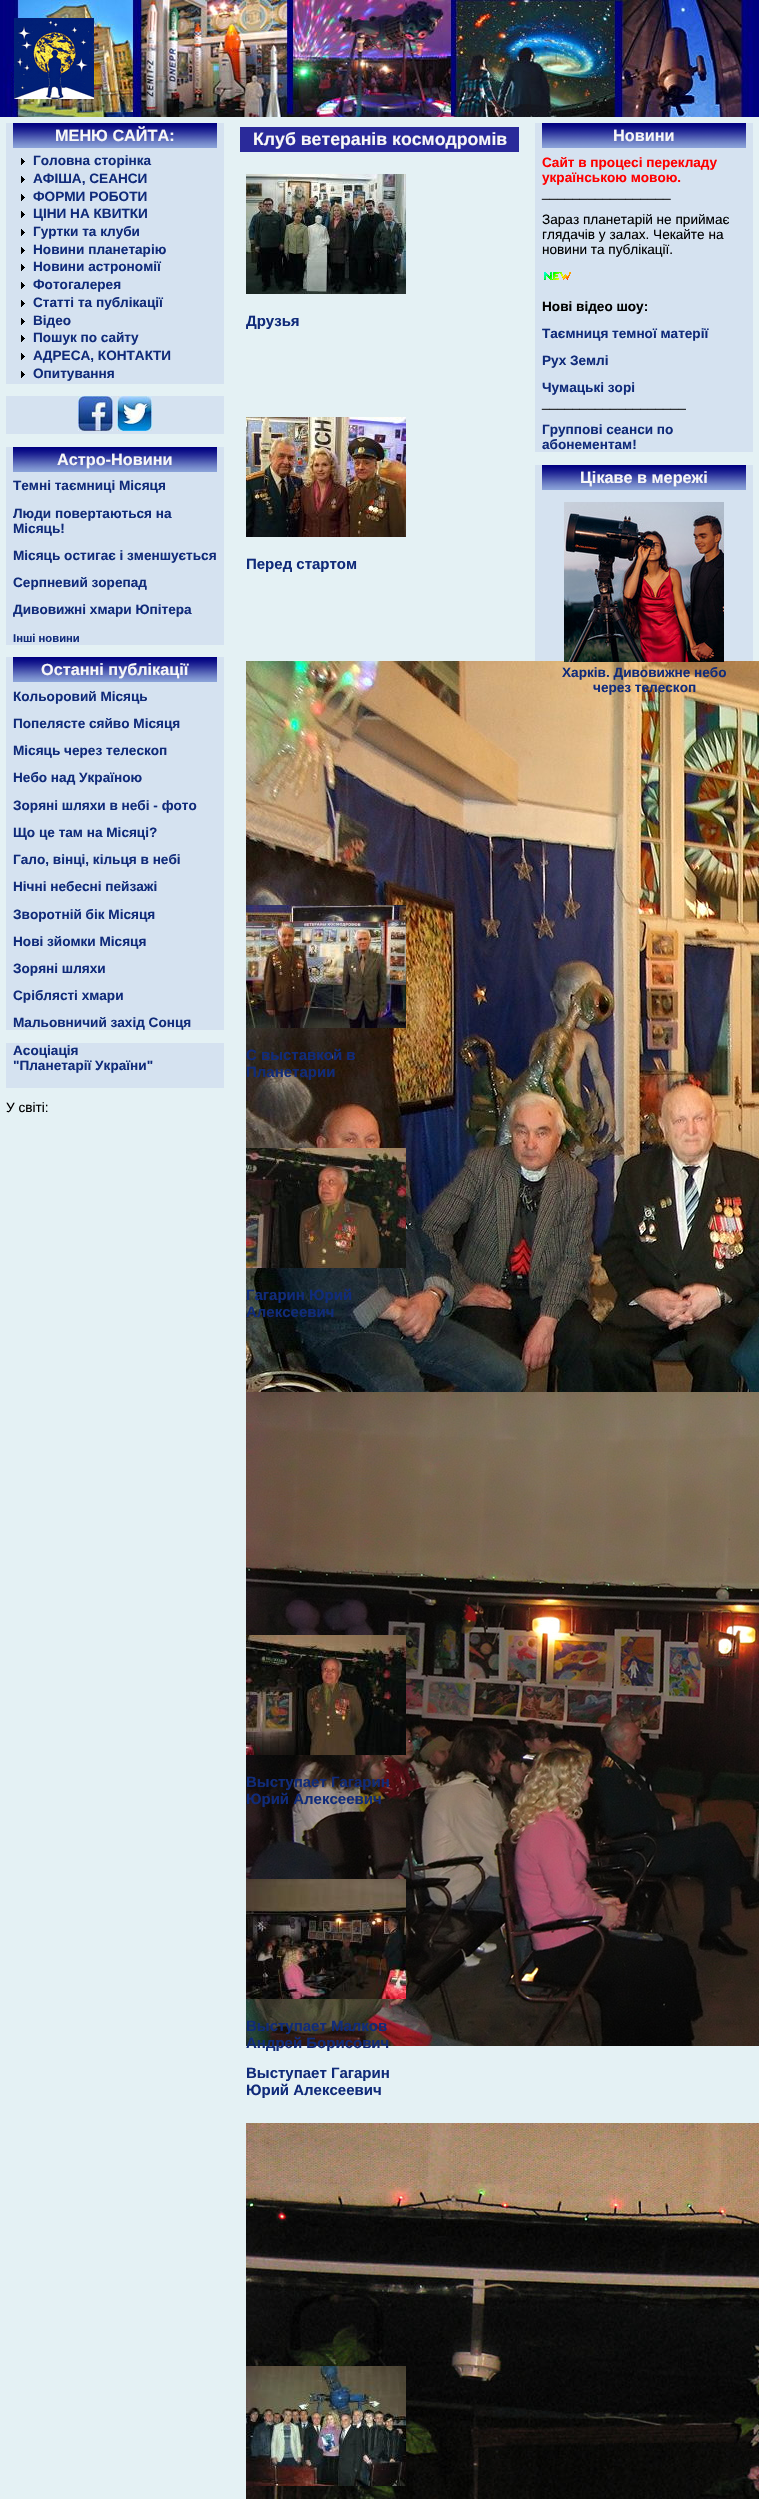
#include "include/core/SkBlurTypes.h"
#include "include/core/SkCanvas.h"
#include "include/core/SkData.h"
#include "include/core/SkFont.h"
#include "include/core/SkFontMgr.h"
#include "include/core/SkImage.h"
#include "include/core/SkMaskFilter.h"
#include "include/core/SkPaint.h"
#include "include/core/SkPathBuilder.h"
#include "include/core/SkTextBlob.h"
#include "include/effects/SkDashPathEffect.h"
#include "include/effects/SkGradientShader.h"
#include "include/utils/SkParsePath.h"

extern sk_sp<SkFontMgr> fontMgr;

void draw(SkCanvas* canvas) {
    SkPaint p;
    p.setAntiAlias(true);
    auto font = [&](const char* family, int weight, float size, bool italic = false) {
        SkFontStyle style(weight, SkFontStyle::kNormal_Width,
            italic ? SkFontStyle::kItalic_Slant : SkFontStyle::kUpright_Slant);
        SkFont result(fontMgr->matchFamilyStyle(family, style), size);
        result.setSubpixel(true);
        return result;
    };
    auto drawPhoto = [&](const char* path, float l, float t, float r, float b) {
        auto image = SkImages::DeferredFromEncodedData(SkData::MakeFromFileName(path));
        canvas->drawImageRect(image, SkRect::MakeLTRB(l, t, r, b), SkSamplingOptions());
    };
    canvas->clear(0xFFE4F1F4);
    p.setColor(0xFF000080);
    canvas->drawRect(SkRect::MakeLTRB(0, 0, 759, 117), p);
    drawPhoto("media/1.png", 3, 0, 755, 117);
    drawPhoto("media/2.png", 14, 18, 94, 99);
    p.setColor(0xFFD5E2F0);
    canvas->drawRect(SkRect::MakeLTRB(6, 123, 224, 384), p);
    drawPhoto("media/3.png", 13, 123, 217, 148);
    auto font1 = font("Liberation Sans", 700, 16.25f);
    p.setColor(0xFFF7F7F7);
    canvas->drawString("МЕНЮ САЙТА:", 55, 141, font1, p);
    drawPhoto("media/4.png", 21, 158, 25, 165);
    auto font2 = font("Liberation Sans", 700, 13.6f);
    p.setColor(0xFF102B7A);
    canvas->drawString("Головна сторінка", 33, 165, font2, p);
    drawPhoto("media/4.png", 21, 176, 25, 183);
    canvas->drawString("АФІША, СЕАНСИ", 33, 183, font2, p);
    drawPhoto("media/4.png", 21, 194, 25, 201);
    canvas->drawString("ФОРМИ РОБОТИ", 33, 201, font2, p);
    drawPhoto("media/4.png", 21, 211, 25, 218);
    canvas->drawString("ЦІНИ НА КВИТКИ", 33, 218, font2, p);
    drawPhoto("media/4.png", 21, 229, 25, 236);
    canvas->drawString("Гуртки та клуби", 33, 236, font2, p);
    drawPhoto("media/4.png", 21, 247, 25, 254);
    canvas->drawString("Новини планетарію", 33, 254, font2, p);
    drawPhoto("media/4.png", 21, 264, 25, 271);
    canvas->drawString("Новини астрономії", 33, 271, font2, p);
    drawPhoto("media/4.png", 21, 282, 25, 289);
    canvas->drawString("Фотогалерея", 33, 289, font2, p);
    drawPhoto("media/4.png", 21, 300, 25, 307);
    canvas->drawString("Статті та публікації", 33, 307, font2, p);
    drawPhoto("media/4.png", 21, 318, 25, 325);
    canvas->drawString("Відео", 33, 325, font2, p);
    drawPhoto("media/4.png", 21, 335, 25, 342);
    canvas->drawString("Пошук по сайту", 33, 342, font2, p);
    drawPhoto("media/4.png", 21, 353, 25, 360);
    canvas->drawString("АДРЕСА, КОНТАКТИ", 33, 360, font2, p);
    drawPhoto("media/4.png", 21, 371, 25, 378);
    canvas->drawString("Опитування", 33, 378, font2, p);
    p.setColor(0xFFD5E2F0);
    canvas->drawRect(SkRect::MakeLTRB(6, 396, 224, 434), p);
    drawPhoto("media/5.png", 78, 396, 113, 431);
    drawPhoto("media/6.png", 117, 396, 152, 431);
    canvas->drawRect(SkRect::MakeLTRB(6, 447, 224, 645), p);
    drawPhoto("media/3.png", 13, 447, 217, 472);
    p.setColor(0xFFF7F7F7);
    canvas->drawString("Астро-Новини", 57, 465, font1, p);
    p.setColor(0xFF102B7A);
    {
        const struct { const char* s; float x, y; } items[] = {
            {"Темні таємниці Місяця", 13, 490},
            {"Люди повертаються на", 13, 518},
            {"Місяць!", 13, 533},
            {"Місяць остигає і зменшується", 13, 560},
            {"Серпневий зорепад", 13, 587},
            {"Дивовижні хмари Юпітера", 13, 614},
        };
        for (auto [s, x, y] : items) {
            canvas->drawString(s, x, y, font2, p);
        }
    }
    auto font3 = font("Liberation Sans", 700, 11.25f);
    canvas->drawString("Інші новини", 13, 642, font3, p);
    p.setColor(0xFFD5E2F0);
    canvas->drawRect(SkRect::MakeLTRB(6, 657, 224, 1030), p);
    drawPhoto("media/3.png", 13, 657, 217, 682);
    p.setColor(0xFFF7F7F7);
    canvas->drawString("Останні публікації", 41, 675, font1, p);
    p.setColor(0xFF102B7A);
    {
        const struct { const char* s; float x, y; } items[] = {
            {"Кольоровий Місяць", 13, 701},
            {"Попелясте сяйво Місяця", 13, 728},
            {"Місяць через телескоп", 13, 755},
            {"Небо над Україною", 13, 782},
            {"Зоряні шляхи в небі - фото", 13, 810},
            {"Що це там на Місяці?", 13, 837},
            {"Гало, вінці, кільця в небі", 13, 864},
            {"Нічні небесні пейзажі", 13, 891},
            {"Зворотній бік Місяця", 13, 919},
            {"Нові зйомки Місяця", 13, 946},
            {"Зоряні шляхи", 13, 973},
            {"Сріблясті хмари", 13, 1000},
            {"Мальовничий захід Сонця", 13, 1027},
        };
        for (auto [s, x, y] : items) {
            canvas->drawString(s, x, y, font2, p);
        }
    }
    p.setColor(0xFFD5E2F0);
    canvas->drawRect(SkRect::MakeLTRB(6, 1043, 224, 1088), p);
    p.setColor(0xFF102B7A);
    canvas->drawString("Асоціація", 13, 1055, font2, p);
    canvas->drawString("\"Планетарії України\"", 13, 1070, font2, p);
    auto font4 = font("Liberation Sans", 400, 13.6f);
    p.setColor(0xFF000000);
    canvas->drawString("У світі:", 6, 1112, font4, p);
    p.setColor(0xFF2A2A9A);
    canvas->drawRect(SkRect::MakeLTRB(240, 127, 519, 152), p);
    auto font5 = font("Liberation Sans", 700, 17.7f);
    p.setColor(0xFFF7F7F7);
    canvas->drawString("Клуб ветеранів космодромів", 253, 145, font5, p);
    drawPhoto("media/7.png", 246, 174, 406, 294);
    auto font6 = font("Liberation Sans", 700, 15);
    p.setColor(0xFF102B7A);
    canvas->drawString("Друзья", 246, 326, font6, p);
    drawPhoto("media/8.png", 246, 417, 406, 537);
    canvas->drawString("Перед стартом", 246, 569, font6, p);
    drawPhoto("media/9.png", 246, 661, 759, 1392);
    drawPhoto("media/10.png", 246, 905, 406, 1028);
    canvas->drawString("С выставкой в", 246, 1060, font6, p);
    canvas->drawString("Планетарии", 246, 1077, font6, p);
    drawPhoto("media/11.png", 246, 1148, 406, 1268);
    canvas->drawString("Гагарин Юрий", 246, 1300, font6, p);
    canvas->drawString("Алексеевич", 246, 1317, font6, p);
    drawPhoto("media/14.png", 246, 1392, 759, 2046);
    drawPhoto("media/12.png", 246, 1635, 406, 1755);
    canvas->drawString("Выступает Гагарин", 246, 1787, font6, p);
    canvas->drawString("Юрий Алексеевич", 246, 1804, font6, p);
    drawPhoto("media/13.png", 246, 1879, 406, 1999);
    {
        const struct { const char* s; float x, y; } items[] = {
            {"Выступает Малков", 246, 2031},
            {"Андрей Борисович", 246, 2048},
            {"Выступает Гагарин", 246, 2078},
            {"Юрий Алексеевич", 246, 2095},
        };
        for (auto [s, x, y] : items) {
            canvas->drawString(s, x, y, font6, p);
        }
    }
    drawPhoto("media/15.png", 246, 2123, 759, 2499);
    drawPhoto("media/16.png", 246, 2366, 406, 2486);
    p.setColor(0xFFD5E2F0);
    canvas->drawRect(SkRect::MakeLTRB(535, 123, 753, 452), p);
    drawPhoto("media/3.png", 542, 123, 746, 148);
    p.setColor(0xFFF7F7F7);
    canvas->drawString("Новини", 613, 141, font1, p);
    p.setColor(0xFFFF0000);
    canvas->drawString("Сайт в процесі перекладу", 542, 167, font2, p);
    canvas->drawString("українською мовою.", 542, 182, font2, p);
    p.setColor(0xFF000000);
    {
        const struct { const char* s; float x, y; } items[] = {
            {"_________________", 542, 197},
            {"Зараз планетарій не приймає", 542, 224},
            {"глядачів у залах. Чекайте на", 542, 239},
            {"новини та публікації.", 542, 254},
        };
        for (auto [s, x, y] : items) {
            canvas->drawString(s, x, y, font4, p);
        }
    }
    drawPhoto("media/17.png", 544, 272, 571, 280);
    canvas->drawString("Нові відео шоу:", 542, 311, font2, p);
    p.setColor(0xFF102B7A);
    {
        const struct { const char* s; float x, y; } items[] = {
            {"Таємниця темної матерії", 542, 338},
            {"Рух Землі", 542, 365},
            {"Чумацькі зорі", 542, 392},
        };
        for (auto [s, x, y] : items) {
            canvas->drawString(s, x, y, font2, p);
        }
    }
    p.setColor(0xFF000000);
    canvas->drawString("___________________", 542, 407, font4, p);
    p.setColor(0xFF102B7A);
    canvas->drawString("Группові сеанси по", 542, 434, font2, p);
    canvas->drawString("абонементам!", 542, 449, font2, p);
    p.setColor(0xFFD5E2F0);
    canvas->drawRect(SkRect::MakeLTRB(535, 465, 753, 661), p);
    drawPhoto("media/3.png", 542, 465, 746, 490);
    p.setColor(0xFFF7F7F7);
    canvas->drawString("Цікаве в мережі", 580, 483, font1, p);
    drawPhoto("media/18.png", 564, 502, 724, 662);
    p.setColor(0xFF102B7A);
    canvas->drawString("Харків. Дивовижне небо", 562, 677, font2, p);
    canvas->drawString("через телескоп", 593, 692, font2, p);
}
